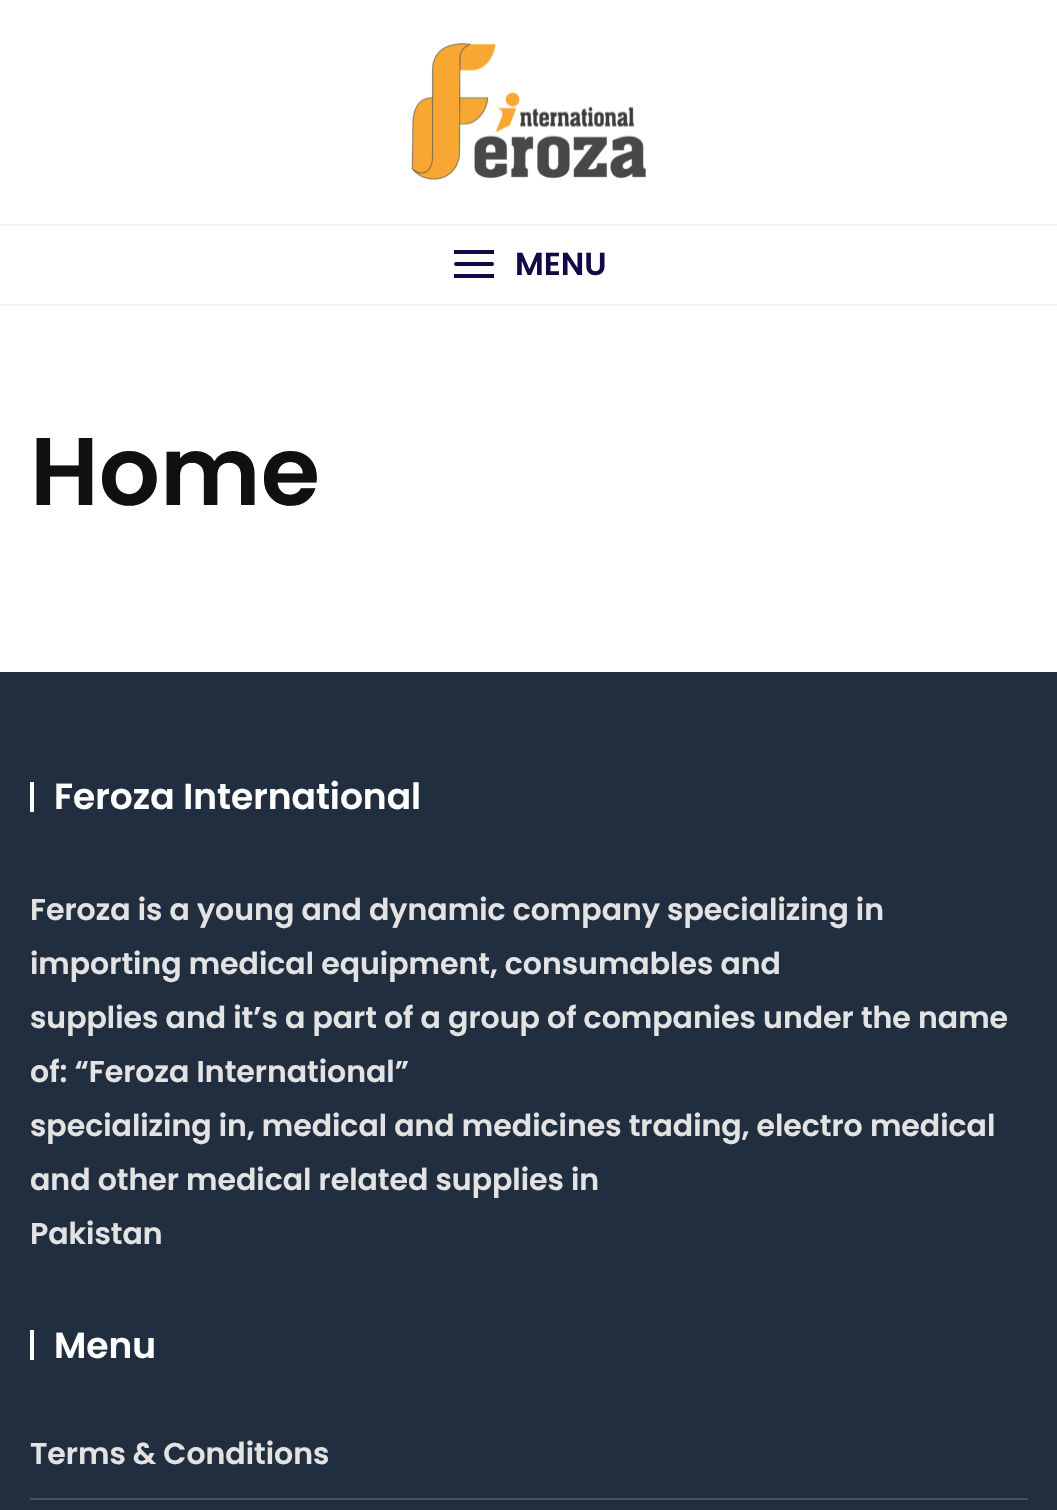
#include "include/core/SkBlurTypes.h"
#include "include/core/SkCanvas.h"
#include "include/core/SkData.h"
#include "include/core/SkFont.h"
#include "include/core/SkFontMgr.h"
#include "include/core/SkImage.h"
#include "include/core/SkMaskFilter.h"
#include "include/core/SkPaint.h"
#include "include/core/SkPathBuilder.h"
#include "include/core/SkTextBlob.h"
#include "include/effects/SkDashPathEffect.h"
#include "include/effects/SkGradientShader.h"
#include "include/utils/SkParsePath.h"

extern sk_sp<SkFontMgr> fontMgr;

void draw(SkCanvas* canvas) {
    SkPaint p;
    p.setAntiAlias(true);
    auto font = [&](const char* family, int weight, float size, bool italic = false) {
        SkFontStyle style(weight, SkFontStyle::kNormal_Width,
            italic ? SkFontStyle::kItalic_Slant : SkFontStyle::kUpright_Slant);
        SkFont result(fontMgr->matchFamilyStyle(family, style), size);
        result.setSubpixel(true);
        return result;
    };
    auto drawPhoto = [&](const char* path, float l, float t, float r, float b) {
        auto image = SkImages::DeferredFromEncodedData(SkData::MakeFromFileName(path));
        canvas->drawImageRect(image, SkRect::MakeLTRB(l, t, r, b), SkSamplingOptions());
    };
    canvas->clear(0xFFFFFFFF);
    p.setColor(0xFFF5F5F5);
    canvas->drawRect(SkRect::MakeLTRB(0, 224, 1057, 226), p);
    drawPhoto("media/1.png", 411, 43, 646, 180);
    p.setColor(0xFF130947);
    canvas->drawRoundRect(SkRect::MakeLTRB(454, 262, 494, 266), 2, 2, p);
    canvas->drawRect(SkRect::MakeLTRB(454, 250, 494, 254), p);
    canvas->drawRect(SkRect::MakeLTRB(454, 274, 494, 278), p);
    auto font1 = font("Poppins", 600, 32);
    canvas->drawString("MENU", 515, 275, font1, p);
    p.setColor(0xFFF2F2F2);
    canvas->drawRect(SkRect::MakeLTRB(0, 304, 1057, 306), p);
    auto font2 = font("Poppins", 600, 96);
    p.setColor(0xFF101010);
    canvas->drawString("Home", 30, 505, font2, p);
    p.setColor(0xFF212E3F);
    canvas->drawRect(SkRect::MakeLTRB(0, 672, 1057, 1510), p);
    p.setColor(0xFFFFFFFF);
    canvas->drawRect(SkRect::MakeLTRB(30, 782, 34, 812), p);
    auto font3 = font("Poppins", 600, 36);
    canvas->drawString("Feroza International", 54, 809, font3, p);
    auto font4 = font("Poppins", 600, 30);
    p.setColor(0xFFE3E3E3);
    {
        const struct { const char* s; float x, y; } items[] = {
            {"Feroza is a young and dynamic company specializing in", 30, 920},
            {"importing medical equipment, consumables and", 30, 974},
            {"supplies and it’s a part of a group of companies under the name", 30, 1028},
            {"of: “Feroza International”", 30, 1082},
            {"specializing in, medical and medicines trading, electro medical", 30, 1136},
            {"and other medical related supplies in", 30, 1190},
            {"Pakistan", 30, 1244},
        };
        for (auto [s, x, y] : items) {
            canvas->drawString(s, x, y, font4, p);
        }
    }
    p.setColor(0xFFFFFFFF);
    canvas->drawRect(SkRect::MakeLTRB(30, 1330, 34, 1360), p);
    canvas->drawString("Menu", 54, 1358, font3, p);
    p.setColor(0xFF485260);
    canvas->drawRect(SkRect::MakeLTRB(30, 1498, 1028, 1500), p);
    p.setColor(0xFFE3E3E3);
    canvas->drawString("Terms & Conditions", 30, 1464, font4, p);
}
